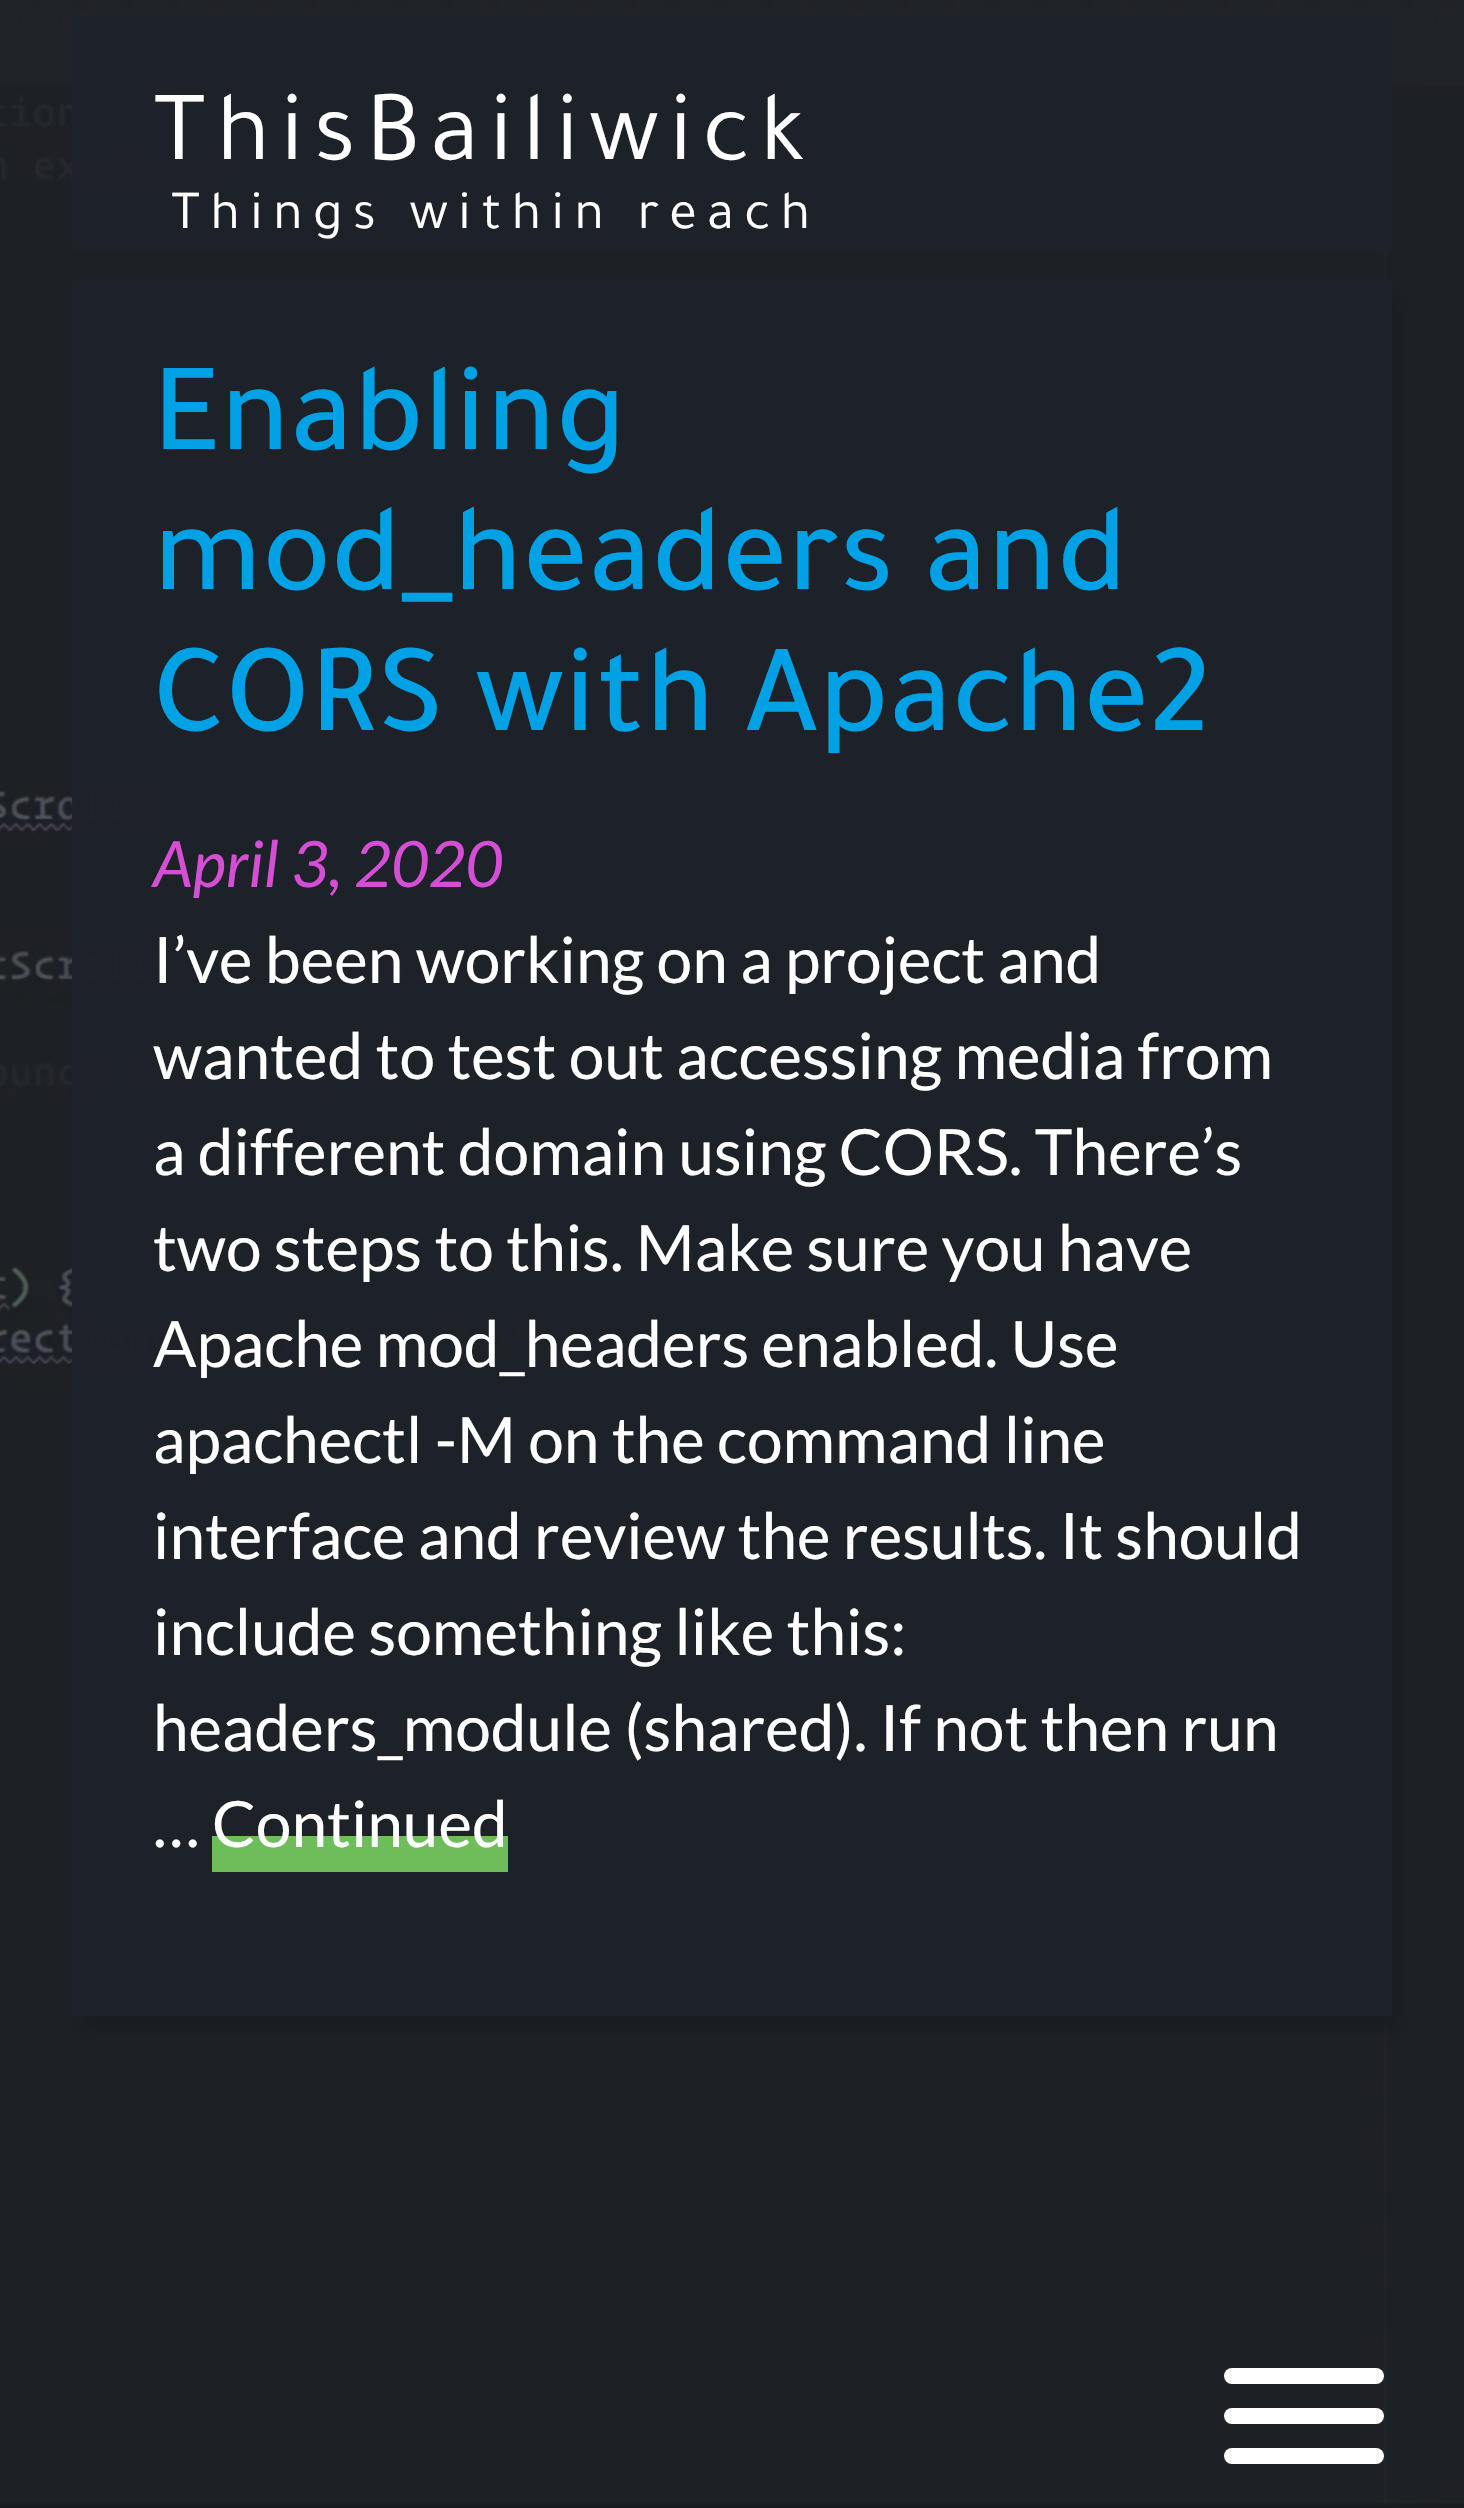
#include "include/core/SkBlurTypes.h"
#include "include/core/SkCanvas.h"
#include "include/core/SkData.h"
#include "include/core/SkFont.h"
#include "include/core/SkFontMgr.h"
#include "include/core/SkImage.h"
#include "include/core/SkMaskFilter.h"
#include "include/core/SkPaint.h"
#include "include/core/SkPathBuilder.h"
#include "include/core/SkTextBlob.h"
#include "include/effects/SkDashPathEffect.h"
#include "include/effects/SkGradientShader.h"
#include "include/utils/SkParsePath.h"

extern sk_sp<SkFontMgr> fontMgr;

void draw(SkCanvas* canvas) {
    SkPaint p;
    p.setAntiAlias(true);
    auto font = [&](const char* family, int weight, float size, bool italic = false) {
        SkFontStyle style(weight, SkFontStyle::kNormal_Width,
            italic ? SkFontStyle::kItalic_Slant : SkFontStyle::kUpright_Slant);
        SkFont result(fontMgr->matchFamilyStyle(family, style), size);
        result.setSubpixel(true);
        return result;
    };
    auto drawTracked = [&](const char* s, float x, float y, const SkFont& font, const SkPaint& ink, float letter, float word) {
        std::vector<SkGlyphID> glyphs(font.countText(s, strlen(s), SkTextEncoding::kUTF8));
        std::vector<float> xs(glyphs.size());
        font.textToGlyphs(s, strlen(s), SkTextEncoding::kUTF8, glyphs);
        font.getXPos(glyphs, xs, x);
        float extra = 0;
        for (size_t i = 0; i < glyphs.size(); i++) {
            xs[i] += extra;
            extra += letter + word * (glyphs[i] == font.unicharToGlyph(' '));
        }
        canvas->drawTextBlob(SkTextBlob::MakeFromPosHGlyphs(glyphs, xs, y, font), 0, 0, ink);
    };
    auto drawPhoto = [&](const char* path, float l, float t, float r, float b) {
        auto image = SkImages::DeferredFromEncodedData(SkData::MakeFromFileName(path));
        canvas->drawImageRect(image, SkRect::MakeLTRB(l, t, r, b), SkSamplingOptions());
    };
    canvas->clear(0xFF1D2127);
    drawPhoto("media/1.png", 0, 0, 1464, 2508);
    p.setColor(0xF71D2127);
    canvas->drawRect(SkRect::MakeLTRB(72, 16, 1392, 252), p);
    auto font1 = font("Tajawal", 400, 101);
    p.setColor(0xFFFFFFFF);
    drawTracked("ThisBailiwick", 153, 159, font1, p, 10.1f, 0);
    auto font2 = font("Tajawal", 400, 55.6f);
    drawTracked("Things within reach", 171, 228, font2, p, 10.1f, 0);
    canvas->drawRoundRect(SkRect::MakeLTRB(1224, 2408, 1384, 2424), 8, 8, p);
    canvas->drawRoundRect(SkRect::MakeLTRB(1224, 2368, 1384, 2384), 8, 8, p);
    canvas->drawRoundRect(SkRect::MakeLTRB(1224, 2448, 1384, 2464), 8, 8, p);
    canvas->save();
    canvas->clipPath(SkPathBuilder(SkPathFillType::kEvenOdd).moveTo(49, 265).lineTo(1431, 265).lineTo(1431, 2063).lineTo(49, 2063).close().moveTo(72, 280).lineTo(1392, 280).lineTo(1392, 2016).lineTo(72, 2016).close().detach(), true);
    p.setColor(0xFF181B20);
    p.setMaskFilter(SkMaskFilter::MakeBlur(kNormal_SkBlurStyle, 10));
    canvas->drawRect(SkRect::MakeLTRB(80, 296, 1400, 2032), p);
    p.setMaskFilter(nullptr);
    canvas->restore();
    p.setColor(0xF71D2127);
    canvas->drawRect(SkRect::MakeLTRB(72, 280, 1392, 2016), p);
    auto font3 = font("Tajawal", 500, 128);
    p.setColor(0xFF00A1E5);
    {
        const struct { const char* s; float x, y; } items[] = {
            {"Enabling", 153, 449},
            {"mod_headers and", 153, 589},
            {"CORS with Apache2", 153, 730},
        };
        for (auto [s, x, y] : items) {
            canvas->drawString(s, x, y, font3, p);
        }
    }
    auto font4 = font("Lato", 400, 64, true);
    p.setColor(0xFFD54FD6);
    canvas->drawString("April 3, 2020", 153, 887, font4, p);
    auto font5 = font("Lato", 400, 64);
    p.setColor(0xFFFFFFFF);
    {
        const struct { const char* s; float x, y; } items[] = {
            {"I’ve been working on a project and", 153, 983},
            {"wanted to test out accessing media from", 153, 1079},
            {"a different domain using CORS. There’s", 153, 1175},
            {"two steps to this. Make sure you have", 153, 1271},
            {"Apache mod_headers enabled. Use", 153, 1367},
            {"apachectl -M on the command line", 153, 1463},
            {"interface and review the results. It should", 153, 1559},
            {"include something like this:", 153, 1655},
            {"headers_module (shared). If not then run", 153, 1751},
            {"…", 153, 1847},
        };
        for (auto [s, x, y] : items) {
            canvas->drawString(s, x, y, font5, p);
        }
    }
    p.setColor(0xFF6DBE5B);
    canvas->drawRect(SkRect::MakeLTRB(212, 1836, 508, 1872), p);
    p.setColor(0xFFFFFFFF);
    canvas->drawString("Continued", 212, 1847, font5, p);
}
